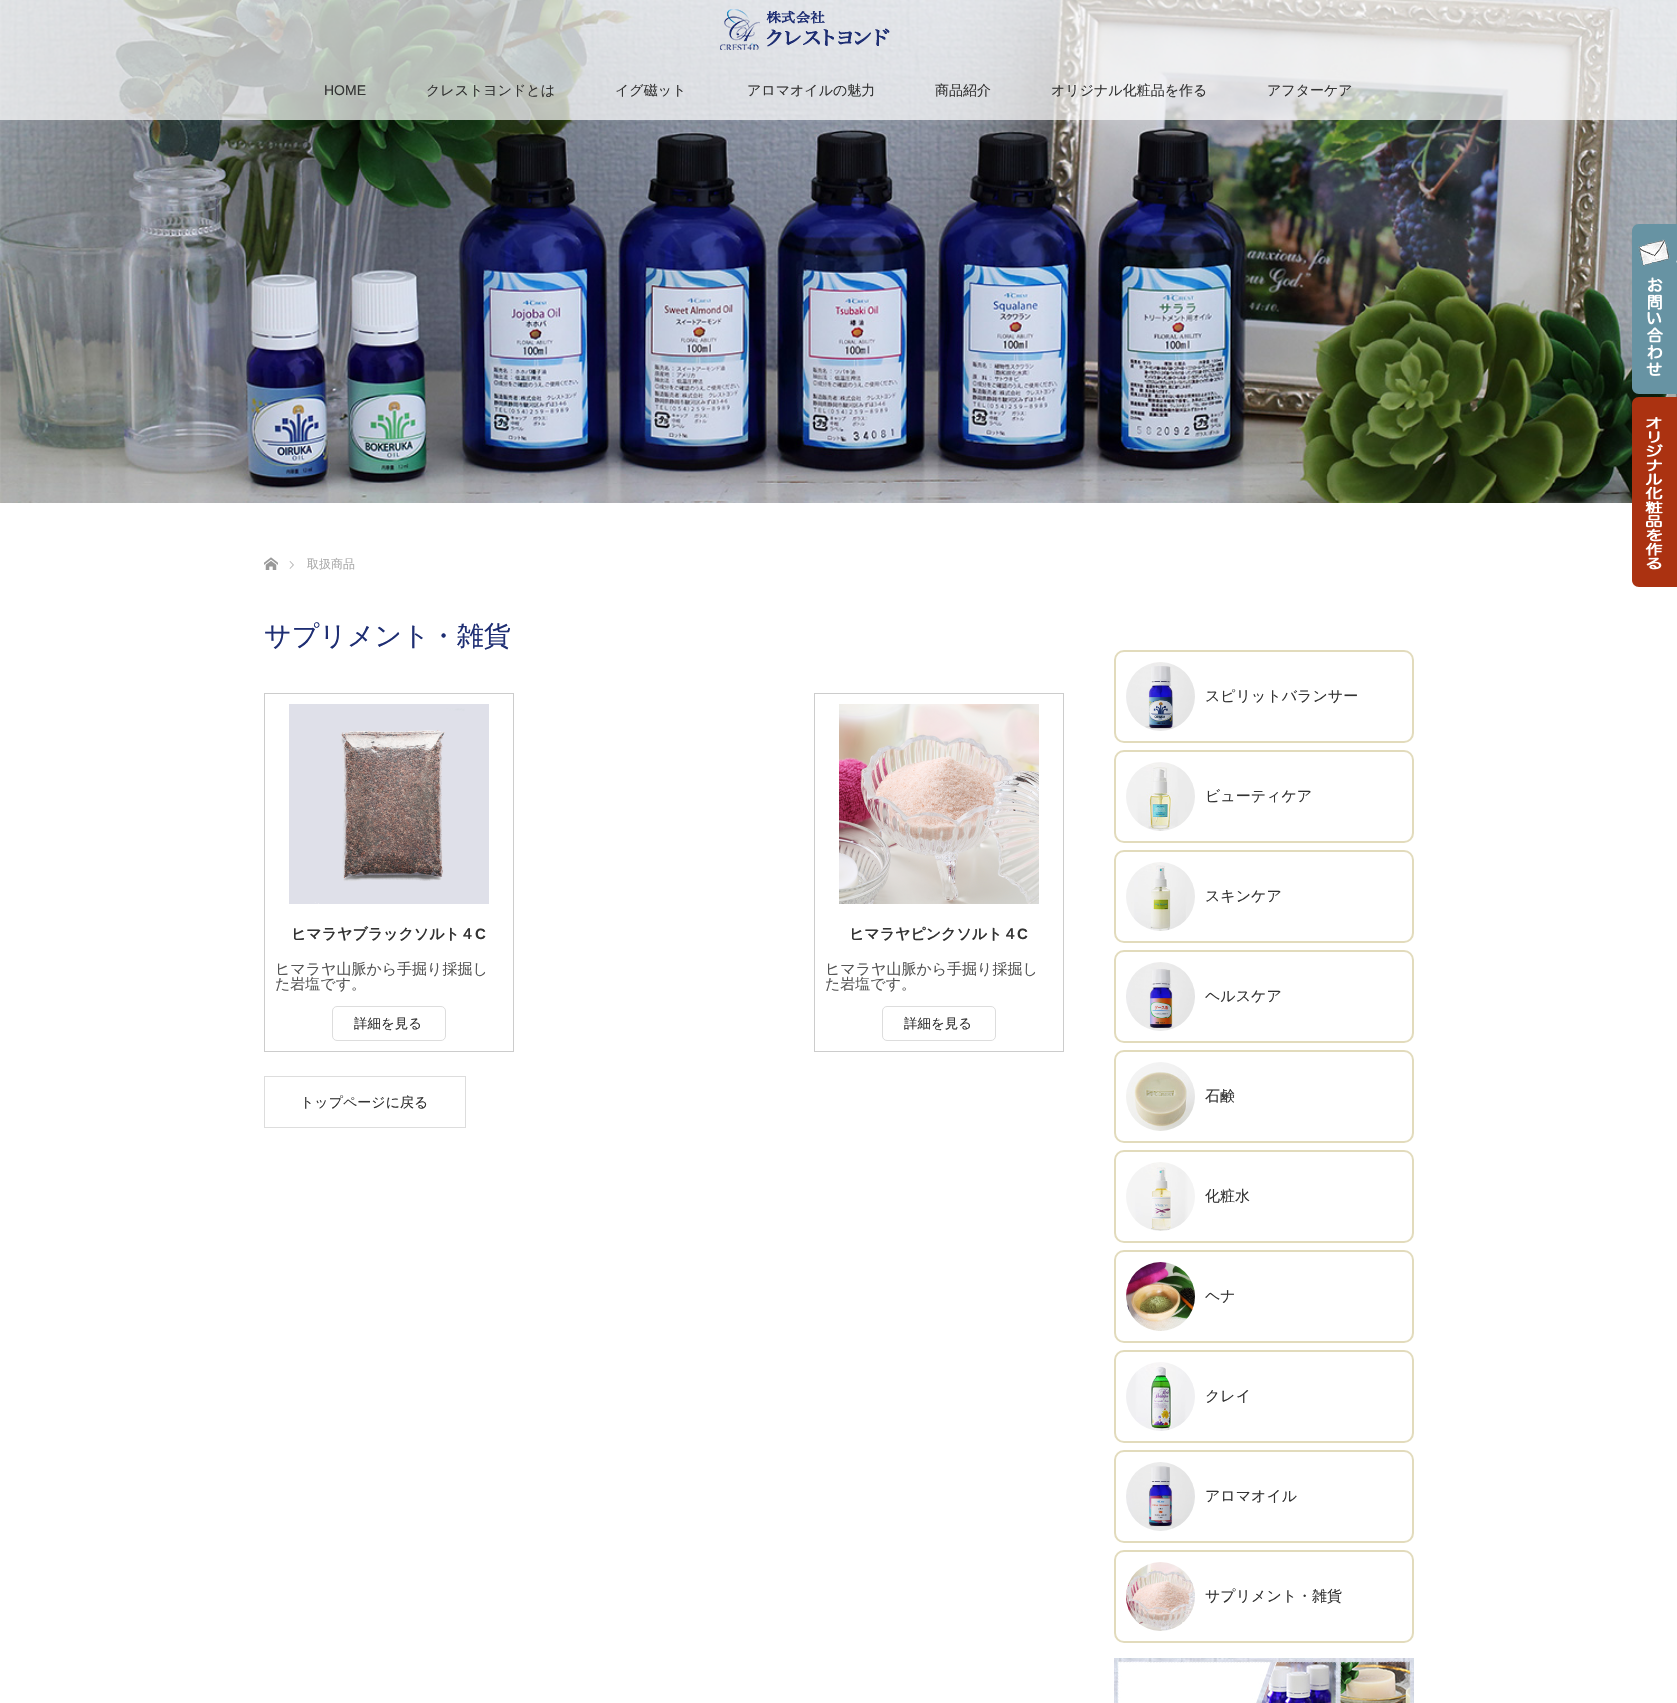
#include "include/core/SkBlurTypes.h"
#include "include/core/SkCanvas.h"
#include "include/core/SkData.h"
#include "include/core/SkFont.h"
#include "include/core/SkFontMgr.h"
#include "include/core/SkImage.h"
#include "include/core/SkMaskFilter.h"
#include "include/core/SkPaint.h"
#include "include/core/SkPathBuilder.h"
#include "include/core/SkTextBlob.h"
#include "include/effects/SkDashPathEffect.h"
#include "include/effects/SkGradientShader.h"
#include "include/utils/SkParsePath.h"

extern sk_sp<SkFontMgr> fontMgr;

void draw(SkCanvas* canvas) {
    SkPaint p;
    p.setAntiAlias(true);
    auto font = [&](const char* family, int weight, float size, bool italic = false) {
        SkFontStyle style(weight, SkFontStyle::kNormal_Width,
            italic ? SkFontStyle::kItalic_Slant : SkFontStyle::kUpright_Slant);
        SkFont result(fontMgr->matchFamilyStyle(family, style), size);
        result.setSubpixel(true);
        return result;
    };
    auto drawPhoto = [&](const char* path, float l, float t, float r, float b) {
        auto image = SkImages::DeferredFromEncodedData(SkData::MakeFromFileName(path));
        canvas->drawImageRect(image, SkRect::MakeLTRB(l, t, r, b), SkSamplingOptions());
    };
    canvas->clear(0xFFFFFFFF);
    drawPhoto("media/2.png", 0, 0, 1677, 503);
    p.setColor(0xB3FFFFFF);
    canvas->drawRect(SkRect::MakeLTRB(0, 0, 1677, 120), p);
    drawPhoto("media/1.png", 720, 9, 890, 50);
    auto font1 = font("Liberation Sans", 400, 14);
    p.setColor(0xFF333333);
    canvas->drawString("HOME", 324, 95, font1, p);
    auto font2 = font("WenQuanYi Zen Hei", 500, 14);
    {
        const struct { const char* s; float x, y; } items[] = {
            {"クレストヨンドとは", 426, 95},
            {"イグ磁ット", 615, 95},
            {"アロマオイルの魅力", 747, 95},
            {"商品紹介", 935, 95},
            {"オリジナル化粧品を作る", 1051, 95},
            {"アフターケア", 1267, 95},
        };
        for (auto [s, x, y] : items) {
            canvas->drawString(s, x, y, font2, p);
        }
    }
    drawPhoto("media/3.png", 264, 557, 278, 570);
    drawPhoto("media/4.png", 289, 561, 294, 569);
    auto font3 = font("WenQuanYi Zen Hei", 500, 12);
    p.setColor(0xFFAAAAAA);
    canvas->drawString("取扱商品", 307, 568, font3, p);
    p.setColor(0xFF6793A3);
    canvas->drawPath(SkPathBuilder().moveTo(1639, 224).lineTo(1677, 224).lineTo(1677, 394).lineTo(1639, 394).cubicTo(1635, 394, 1632, 391, 1632, 387).lineTo(1632, 231).cubicTo(1632, 227, 1635, 224, 1639, 224).close().detach(), p);
    drawPhoto("media/5.png", 1638, 239, 1677, 376);
    p.setColor(0xFFAB3211);
    canvas->drawPath(SkPathBuilder().moveTo(1639, 397).lineTo(1677, 397).lineTo(1677, 587).lineTo(1639, 587).cubicTo(1635, 587, 1632, 584, 1632, 580).lineTo(1632, 404).cubicTo(1632, 400, 1635, 397, 1639, 397).close().detach(), p);
    drawPhoto("media/6.png", 1645, 417, 1663, 570);
    auto font4 = font("WenQuanYi Zen Hei", 500, 27);
    p.setColor(0xFF1E2E73);
    canvas->drawString("サプリメント・雑貨", 264, 645, font4, p);
    p.setStyle(SkPaint::kStroke_Style);
    p.setStrokeWidth(1);
    p.setColor(0xFFCCCCCC);
    canvas->drawRect(SkRect::MakeLTRB(264.5f, 693.5f, 513.5f, 1051.5f), p);
    drawPhoto("media/7.png", 289, 704, 489, 904);
    auto font5 = font("WenQuanYi Zen Hei", 700, 15);
    p.setStyle(SkPaint::kFill_Style);
    p.setColor(0xFF333333);
    canvas->drawString("ヒマラヤブラックソルト４", 291, 939, font5, p);
    auto font6 = font("Liberation Sans", 700, 15);
    canvas->drawString("C", 475, 939, font6, p);
    auto font7 = font("WenQuanYi Zen Hei", 500, 15);
    p.setColor(0xFF555555);
    canvas->drawString("ヒマラヤ山脈から手掘り採掘し", 275, 974, font7, p);
    canvas->drawString("た岩塩です。", 275, 989, font7, p);
    p.setStyle(SkPaint::kStroke_Style);
    p.setColor(0xFFDDDDDD);
    canvas->drawRoundRect(SkRect::MakeLTRB(332.5f, 1006.5f, 445.5f, 1040.5f), 4.5f, 4.5f, p);
    auto font8 = font("WenQuanYi Zen Hei", 500, 13.5f);
    p.setStyle(SkPaint::kFill_Style);
    p.setColor(0xFF333333);
    canvas->drawString("詳細を見る", 354, 1028, font8, p);
    p.setStyle(SkPaint::kStroke_Style);
    p.setColor(0xFFCCCCCC);
    canvas->drawRect(SkRect::MakeLTRB(814.5f, 693.5f, 1063.5f, 1051.5f), p);
    drawPhoto("media/8.png", 839, 704, 1039, 904);
    p.setStyle(SkPaint::kFill_Style);
    p.setColor(0xFF333333);
    canvas->drawString("ヒマラヤピンクソルト４", 849, 939, font5, p);
    canvas->drawString("C", 1017, 939, font6, p);
    p.setColor(0xFF555555);
    canvas->drawString("ヒマラヤ山脈から手掘り採掘し", 825, 974, font7, p);
    canvas->drawString("た岩塩です。", 825, 989, font7, p);
    p.setStyle(SkPaint::kStroke_Style);
    p.setColor(0xFFDDDDDD);
    canvas->drawRoundRect(SkRect::MakeLTRB(882.5f, 1006.5f, 995.5f, 1040.5f), 4.5f, 4.5f, p);
    p.setStyle(SkPaint::kFill_Style);
    p.setColor(0xFF333333);
    canvas->drawString("詳細を見る", 904, 1028, font8, p);
    p.setStyle(SkPaint::kStroke_Style);
    p.setColor(0xFFDDDDDD);
    canvas->drawRect(SkRect::MakeLTRB(264.5f, 1076.5f, 465.5f, 1127.5f), p);
    p.setStyle(SkPaint::kFill_Style);
    p.setColor(0xFF333333);
    canvas->drawString("トップページに戻る", 300, 1107, font2, p);
    p.setStyle(SkPaint::kStroke_Style);
    p.setStrokeWidth(2);
    p.setColor(0xFFE2DBBC);
    canvas->drawRoundRect(SkRect::MakeLTRB(1115, 651, 1413, 742), 9, 9, p);
    drawPhoto("media/9.png", 1126, 662, 1195, 731);
    p.setStyle(SkPaint::kFill_Style);
    p.setColor(0xFF333333);
    canvas->drawString("スピリットバランサー", 1205, 701, font7, p);
    p.setStyle(SkPaint::kStroke_Style);
    p.setColor(0xFFE2DBBC);
    canvas->drawRoundRect(SkRect::MakeLTRB(1115, 751, 1413, 842), 9, 9, p);
    drawPhoto("media/10.png", 1126, 762, 1195, 831);
    p.setStyle(SkPaint::kFill_Style);
    p.setColor(0xFF333333);
    canvas->drawString("ビューティケア", 1205, 801, font7, p);
    p.setStyle(SkPaint::kStroke_Style);
    p.setColor(0xFFE2DBBC);
    canvas->drawRoundRect(SkRect::MakeLTRB(1115, 851, 1413, 942), 9, 9, p);
    drawPhoto("media/11.png", 1126, 862, 1195, 931);
    p.setStyle(SkPaint::kFill_Style);
    p.setColor(0xFF333333);
    canvas->drawString("スキンケア", 1205, 901, font7, p);
    p.setStyle(SkPaint::kStroke_Style);
    p.setColor(0xFFE2DBBC);
    canvas->drawRoundRect(SkRect::MakeLTRB(1115, 951, 1413, 1042), 9, 9, p);
    drawPhoto("media/12.png", 1126, 962, 1195, 1031);
    p.setStyle(SkPaint::kFill_Style);
    p.setColor(0xFF333333);
    canvas->drawString("ヘルスケア", 1205, 1001, font7, p);
    p.setStyle(SkPaint::kStroke_Style);
    p.setColor(0xFFE2DBBC);
    canvas->drawRoundRect(SkRect::MakeLTRB(1115, 1051, 1413, 1142), 9, 9, p);
    drawPhoto("media/13.png", 1126, 1062, 1195, 1131);
    p.setStyle(SkPaint::kFill_Style);
    p.setColor(0xFF333333);
    canvas->drawString("石鹸", 1205, 1101, font7, p);
    p.setStyle(SkPaint::kStroke_Style);
    p.setColor(0xFFE2DBBC);
    canvas->drawRoundRect(SkRect::MakeLTRB(1115, 1151, 1413, 1242), 9, 9, p);
    drawPhoto("media/14.png", 1126, 1162, 1195, 1231);
    p.setStyle(SkPaint::kFill_Style);
    p.setColor(0xFF333333);
    canvas->drawString("化粧水", 1205, 1201, font7, p);
    p.setStyle(SkPaint::kStroke_Style);
    p.setColor(0xFFE2DBBC);
    canvas->drawRoundRect(SkRect::MakeLTRB(1115, 1251, 1413, 1342), 9, 9, p);
    drawPhoto("media/15.png", 1126, 1262, 1195, 1331);
    p.setStyle(SkPaint::kFill_Style);
    p.setColor(0xFF333333);
    canvas->drawString("ヘナ", 1205, 1301, font7, p);
    p.setStyle(SkPaint::kStroke_Style);
    p.setColor(0xFFE2DBBC);
    canvas->drawRoundRect(SkRect::MakeLTRB(1115, 1351, 1413, 1442), 9, 9, p);
    drawPhoto("media/16.png", 1126, 1362, 1195, 1431);
    p.setStyle(SkPaint::kFill_Style);
    p.setColor(0xFF333333);
    canvas->drawString("クレイ", 1205, 1401, font7, p);
    p.setStyle(SkPaint::kStroke_Style);
    p.setColor(0xFFE2DBBC);
    canvas->drawRoundRect(SkRect::MakeLTRB(1115, 1451, 1413, 1542), 9, 9, p);
    drawPhoto("media/17.png", 1126, 1462, 1195, 1531);
    p.setStyle(SkPaint::kFill_Style);
    p.setColor(0xFF333333);
    canvas->drawString("アロマオイル", 1205, 1501, font7, p);
    p.setStyle(SkPaint::kStroke_Style);
    p.setColor(0xFFE2DBBC);
    canvas->drawRoundRect(SkRect::MakeLTRB(1115, 1551, 1413, 1642), 9, 9, p);
    drawPhoto("media/18.png", 1126, 1562, 1195, 1631);
    p.setStyle(SkPaint::kFill_Style);
    p.setColor(0xFF333333);
    canvas->drawString("サプリメント・雑貨", 1205, 1601, font7, p);
    drawPhoto("media/19.png", 1114, 1658, 1414, 1703);
}
